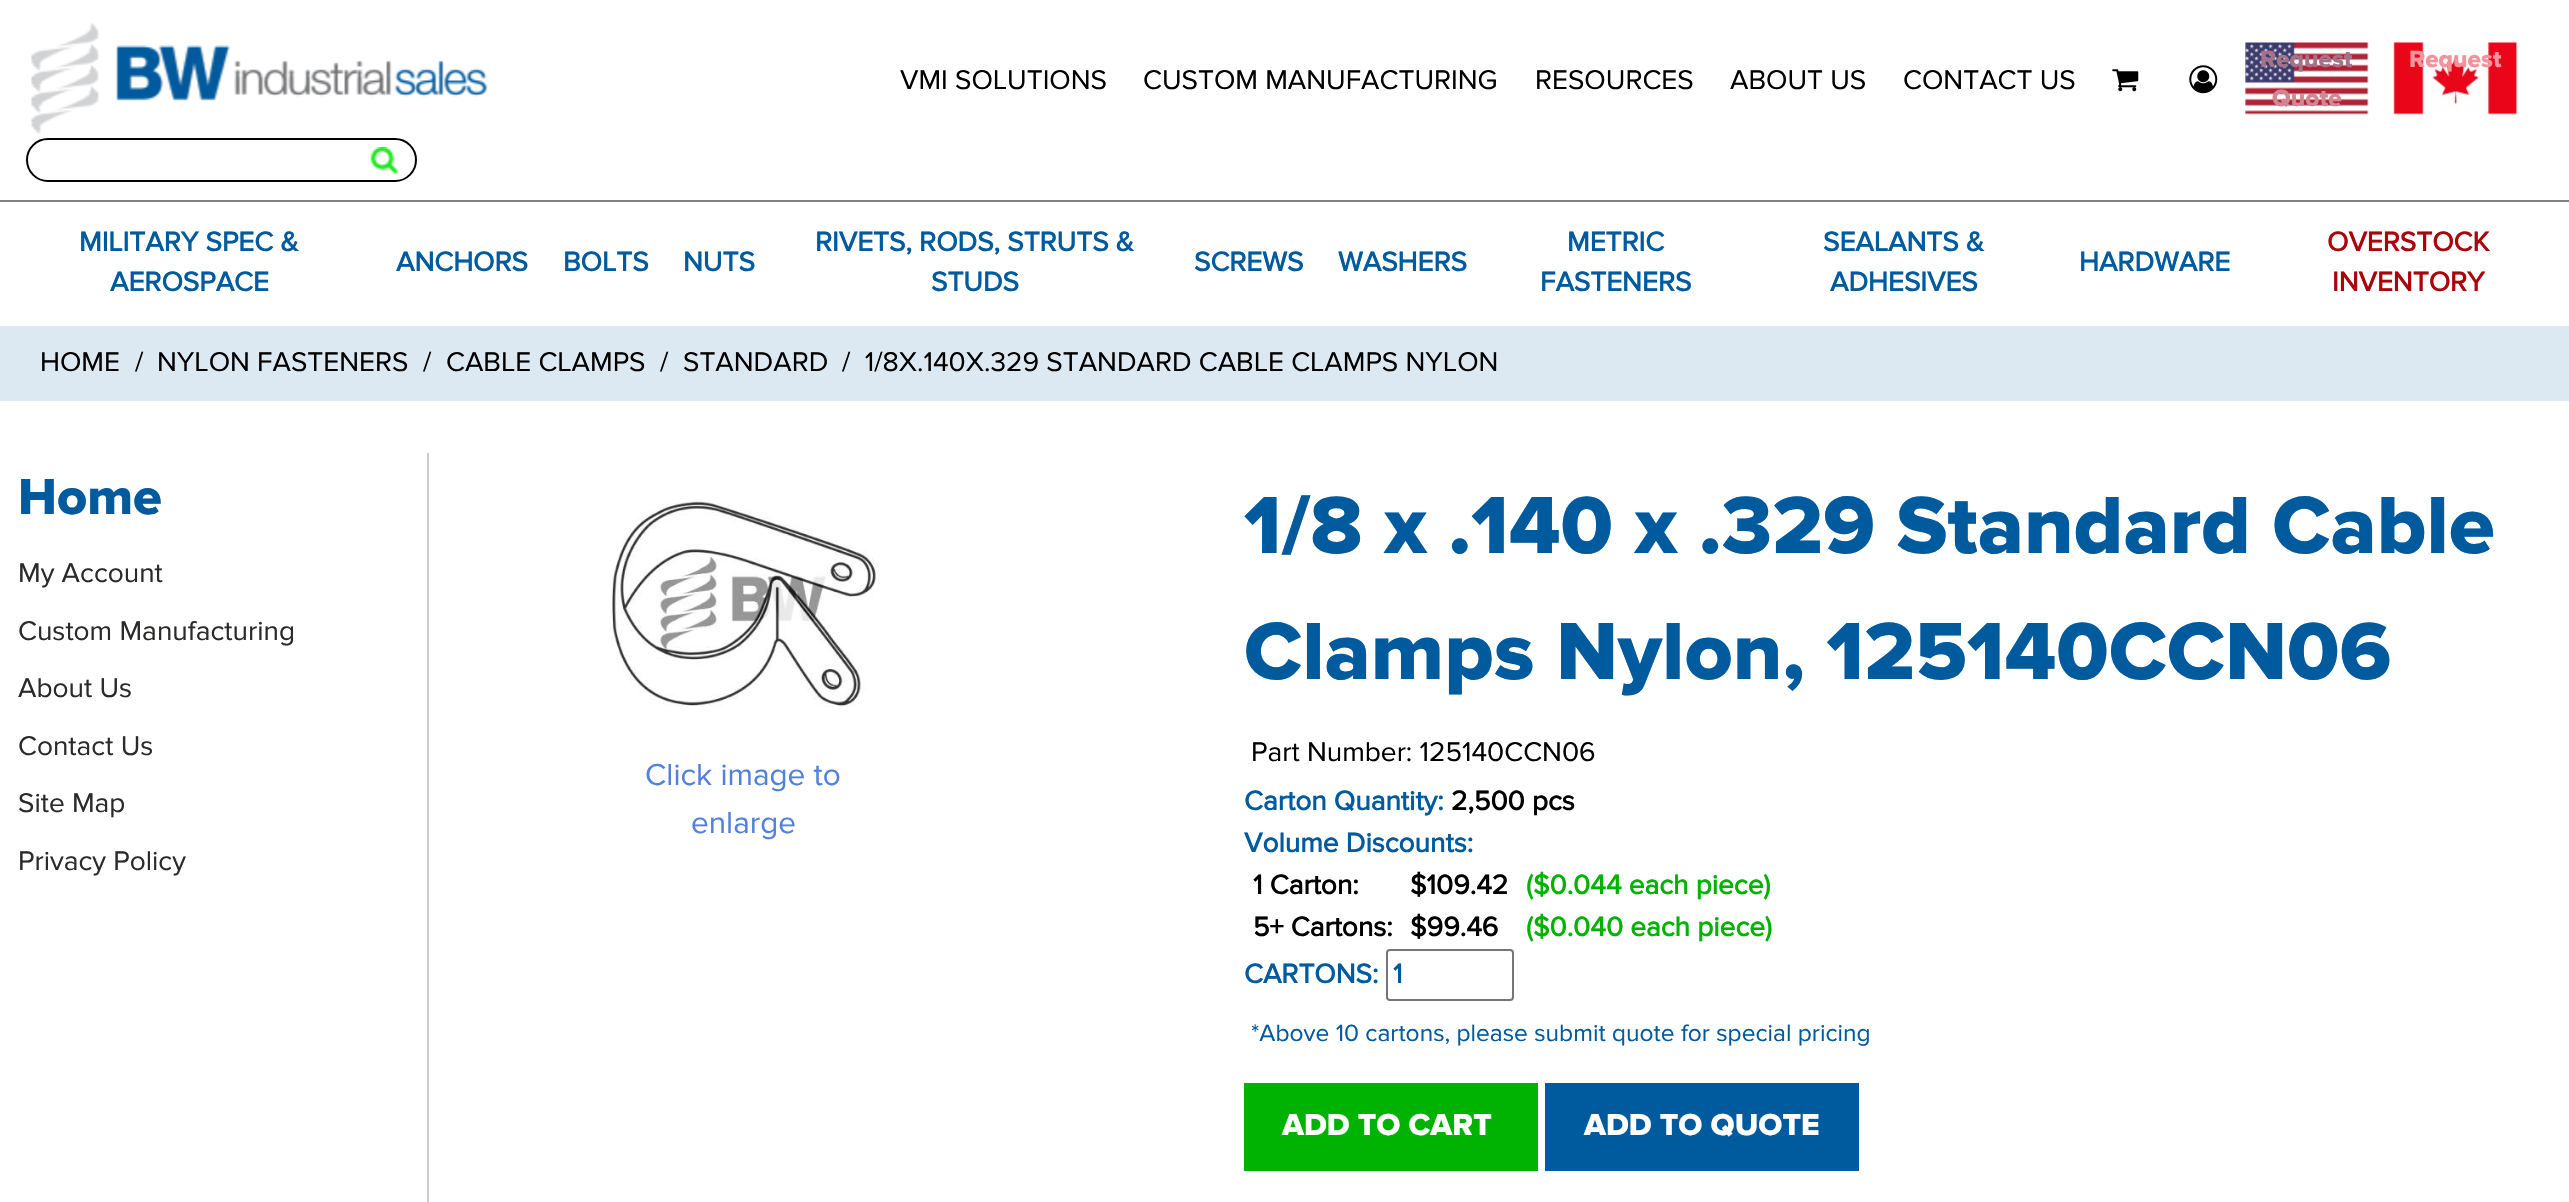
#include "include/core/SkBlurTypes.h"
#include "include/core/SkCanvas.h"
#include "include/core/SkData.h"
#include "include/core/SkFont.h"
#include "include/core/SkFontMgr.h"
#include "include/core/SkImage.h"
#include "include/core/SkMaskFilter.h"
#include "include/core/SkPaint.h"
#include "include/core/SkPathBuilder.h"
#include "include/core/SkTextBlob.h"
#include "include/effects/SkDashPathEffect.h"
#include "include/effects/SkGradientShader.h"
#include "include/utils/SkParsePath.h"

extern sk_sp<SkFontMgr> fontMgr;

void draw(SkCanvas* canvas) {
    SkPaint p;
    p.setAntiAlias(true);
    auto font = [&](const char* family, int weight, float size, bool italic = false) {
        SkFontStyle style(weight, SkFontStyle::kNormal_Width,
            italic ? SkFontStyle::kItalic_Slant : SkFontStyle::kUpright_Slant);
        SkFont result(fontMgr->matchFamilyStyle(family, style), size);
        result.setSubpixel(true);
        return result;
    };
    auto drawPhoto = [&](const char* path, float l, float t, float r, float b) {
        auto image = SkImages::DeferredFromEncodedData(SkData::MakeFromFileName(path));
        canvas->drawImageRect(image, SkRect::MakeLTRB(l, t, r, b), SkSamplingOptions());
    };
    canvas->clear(0xFFFFFFFF);
    p.setColor(0xFF808080);
    canvas->drawRect(SkRect::MakeLTRB(0, 200, 2569, 202), p);
    drawPhoto("media/1.png", 31, 22, 488, 134);
    drawPhoto("media/2.png", 2245, 42, 2369, 115);
    auto font1 = font("Proxima Nova", 800, 24.5f);
    p.setColor(0xFFA3738A);
    canvas->drawString("Request", 2260, 67, font1, p);
    p.setColor(0xFFD28691);
    canvas->drawString("Quote", 2272, 106, font1, p);
    drawPhoto("media/3.png", 2393, 42, 2518, 115);
    p.setColor(0xFFF4939B);
    canvas->drawString("Request", 2409, 67, font1, p);
    auto font2 = font("Proxima Nova", 400, 28);
    p.setColor(0xFF000000);
    {
        const struct { const char* s; float x, y; } items[] = {
            {"VMI SOLUTIONS", 900, 89},
            {"CUSTOM MANUFACTURING", 1143, 89},
            {"RESOURCES", 1535, 89},
            {"ABOUT US", 1730, 89},
            {"CONTACT US", 1903, 89},
        };
        for (auto [s, x, y] : items) {
            canvas->drawString(s, x, y, font2, p);
        }
    }
    drawPhoto("media/4.png", 2112, 69, 2139, 92);
    drawPhoto("media/5.png", 2189, 65, 2218, 94);
    p.setStyle(SkPaint::kStroke_Style);
    p.setStrokeWidth(2);
    canvas->drawRoundRect(SkRect::MakeLTRB(27, 139, 416, 181), 21, 21, p);
    drawPhoto("media/6.png", 370, 147, 399, 174);
    auto font3 = font("Proxima Nova", 700, 28);
    p.setStyle(SkPaint::kFill_Style);
    p.setColor(0xFF005A9E);
    {
        const struct { const char* s; float x, y; } items[] = {
            {"MILITARY SPEC &", 79, 251},
            {"AEROSPACE", 110, 291},
            {"ANCHORS", 396, 271},
            {"BOLTS", 563, 271},
            {"NUTS", 683, 271},
            {"RIVETS, RODS, STRUTS &", 815, 251},
            {"STUDS", 931, 291},
            {"SCREWS", 1194, 271},
            {"WASHERS", 1338, 271},
            {"METRIC", 1567, 251},
            {"FASTENERS", 1540, 291},
            {"SEALANTS &", 1823, 251},
            {"ADHESIVES", 1830, 291},
            {"HARDWARE", 2079, 271},
        };
        for (auto [s, x, y] : items) {
            canvas->drawString(s, x, y, font3, p);
        }
    }
    p.setColor(0xFFAA040C);
    canvas->drawString("OVERSTOCK", 2327, 251, font3, p);
    canvas->drawString("INVENTORY", 2332, 291, font3, p);
    p.setColor(0xFFDDE9F2);
    canvas->drawRect(SkRect::MakeLTRB(0, 326, 2569, 401), p);
    p.setColor(0xFF000000);
    {
        const struct { const char* s; float x, y; } items[] = {
            {"HOME", 40, 371},
            {"/", 135, 371},
            {"NYLON FASTENERS", 157, 371},
            {"/", 423, 371},
            {"CABLE CLAMPS", 446, 371},
            {"/", 660, 371},
            {"STANDARD", 683, 371},
            {"/  1/8X.140X.329 STANDARD CABLE CLAMPS NYLON", 842, 371},
        };
        for (auto [s, x, y] : items) {
            canvas->drawString(s, x, y, font2, p);
        }
    }
    p.setColor(0xFFCCCCCC);
    canvas->drawRect(SkRect::MakeLTRB(427, 453, 429, 1202), p);
    auto font4 = font("Proxima Nova", 800, 52.5f);
    p.setColor(0xFF005A9E);
    canvas->drawString("Home", 18, 514, font4, p);
    p.setColor(0xFF2C2A29);
    {
        const struct { const char* s; float x, y; } items[] = {
            {"My Account", 18, 582},
            {"Custom Manufacturing", 18, 640},
            {"About Us", 18, 697},
            {"Contact Us", 18, 755},
            {"Site Map", 18, 812},
            {"Privacy Policy", 18, 870},
        };
        for (auto [s, x, y] : items) {
            canvas->drawString(s, x, y, font2, p);
        }
    }
    drawPhoto("media/7.png", 609, 499, 880, 707);
    auto font5 = font("Proxima Nova", 400, 31.5f);
    p.setColor(0xFF5280DD);
    canvas->drawString("Click image to", 645, 785, font5, p);
    canvas->drawString("enlarge", 691, 833, font5, p);
    auto font6 = font("Proxima Nova", 800, 84);
    p.setColor(0xFF005A9E);
    canvas->drawString("1/8 x .140 x .329 Standard Cable", 1244, 553, font6, p);
    canvas->drawString("Clamps Nylon, 125140CCN06", 1244, 679, font6, p);
    p.setColor(0xFF000000);
    canvas->drawString("Part Number: 125140CCN06", 1251, 761, font2, p);
    p.setColor(0xFF005A9E);
    canvas->drawString("Carton Quantity:", 1244, 810, font3, p);
    p.setColor(0xFF000000);
    canvas->drawString("2,500 pcs", 1451, 810, font3, p);
    p.setColor(0xFF005A9E);
    canvas->drawString("Volume Discounts:", 1244, 852, font3, p);
    p.setColor(0xFF000000);
    canvas->drawString("1 Carton:", 1253, 894, font3, p);
    canvas->drawString("$109.42", 1410, 894, font3, p);
    p.setColor(0xFF00B201);
    canvas->drawString("($0.044 each piece)", 1526, 894, font3, p);
    p.setColor(0xFF000000);
    canvas->drawString("5+ Cartons:", 1253, 936, font3, p);
    canvas->drawString("$99.46", 1410, 936, font3, p);
    p.setColor(0xFF00B201);
    canvas->drawString("($0.040 each piece)", 1526, 936, font3, p);
    p.setColor(0xFF005A9E);
    canvas->drawString("CARTONS:", 1244, 983, font3, p);
    p.setStyle(SkPaint::kStroke_Style);
    p.setColor(0xFF767676);
    canvas->drawRoundRect(SkRect::MakeLTRB(1387, 950, 1513, 1000), 3, 3, p);
    p.setStyle(SkPaint::kFill_Style);
    p.setColor(0xFF005A9E);
    canvas->drawString("1", 1393, 983, font3, p);
    auto font7 = font("Proxima Nova", 400, 24.5f);
    canvas->drawString("*Above 10 cartons, please submit quote for special pricing", 1251, 1041, font7, p);
    p.setColor(0xFF00B201);
    canvas->drawRect(SkRect::MakeLTRB(1246, 1085, 1536, 1169), p);
    p.setStyle(SkPaint::kStroke_Style);
    p.setStrokeWidth(4);
    canvas->drawRect(SkRect::MakeLTRB(1246, 1085, 1536, 1169), p);
    auto font8 = font("Proxima Nova", 800, 31.5f);
    p.setStyle(SkPaint::kFill_Style);
    p.setColor(0xFFFFFFFF);
    canvas->drawString("ADD TO CART", 1282, 1135, font8, p);
    p.setColor(0xFF005A9E);
    canvas->drawRect(SkRect::MakeLTRB(1547, 1085, 1857, 1169), p);
    p.setStyle(SkPaint::kStroke_Style);
    canvas->drawRect(SkRect::MakeLTRB(1547, 1085, 1857, 1169), p);
    p.setStyle(SkPaint::kFill_Style);
    p.setColor(0xFFFFFFFF);
    canvas->drawString("ADD TO QUOTE", 1584, 1135, font8, p);
}
